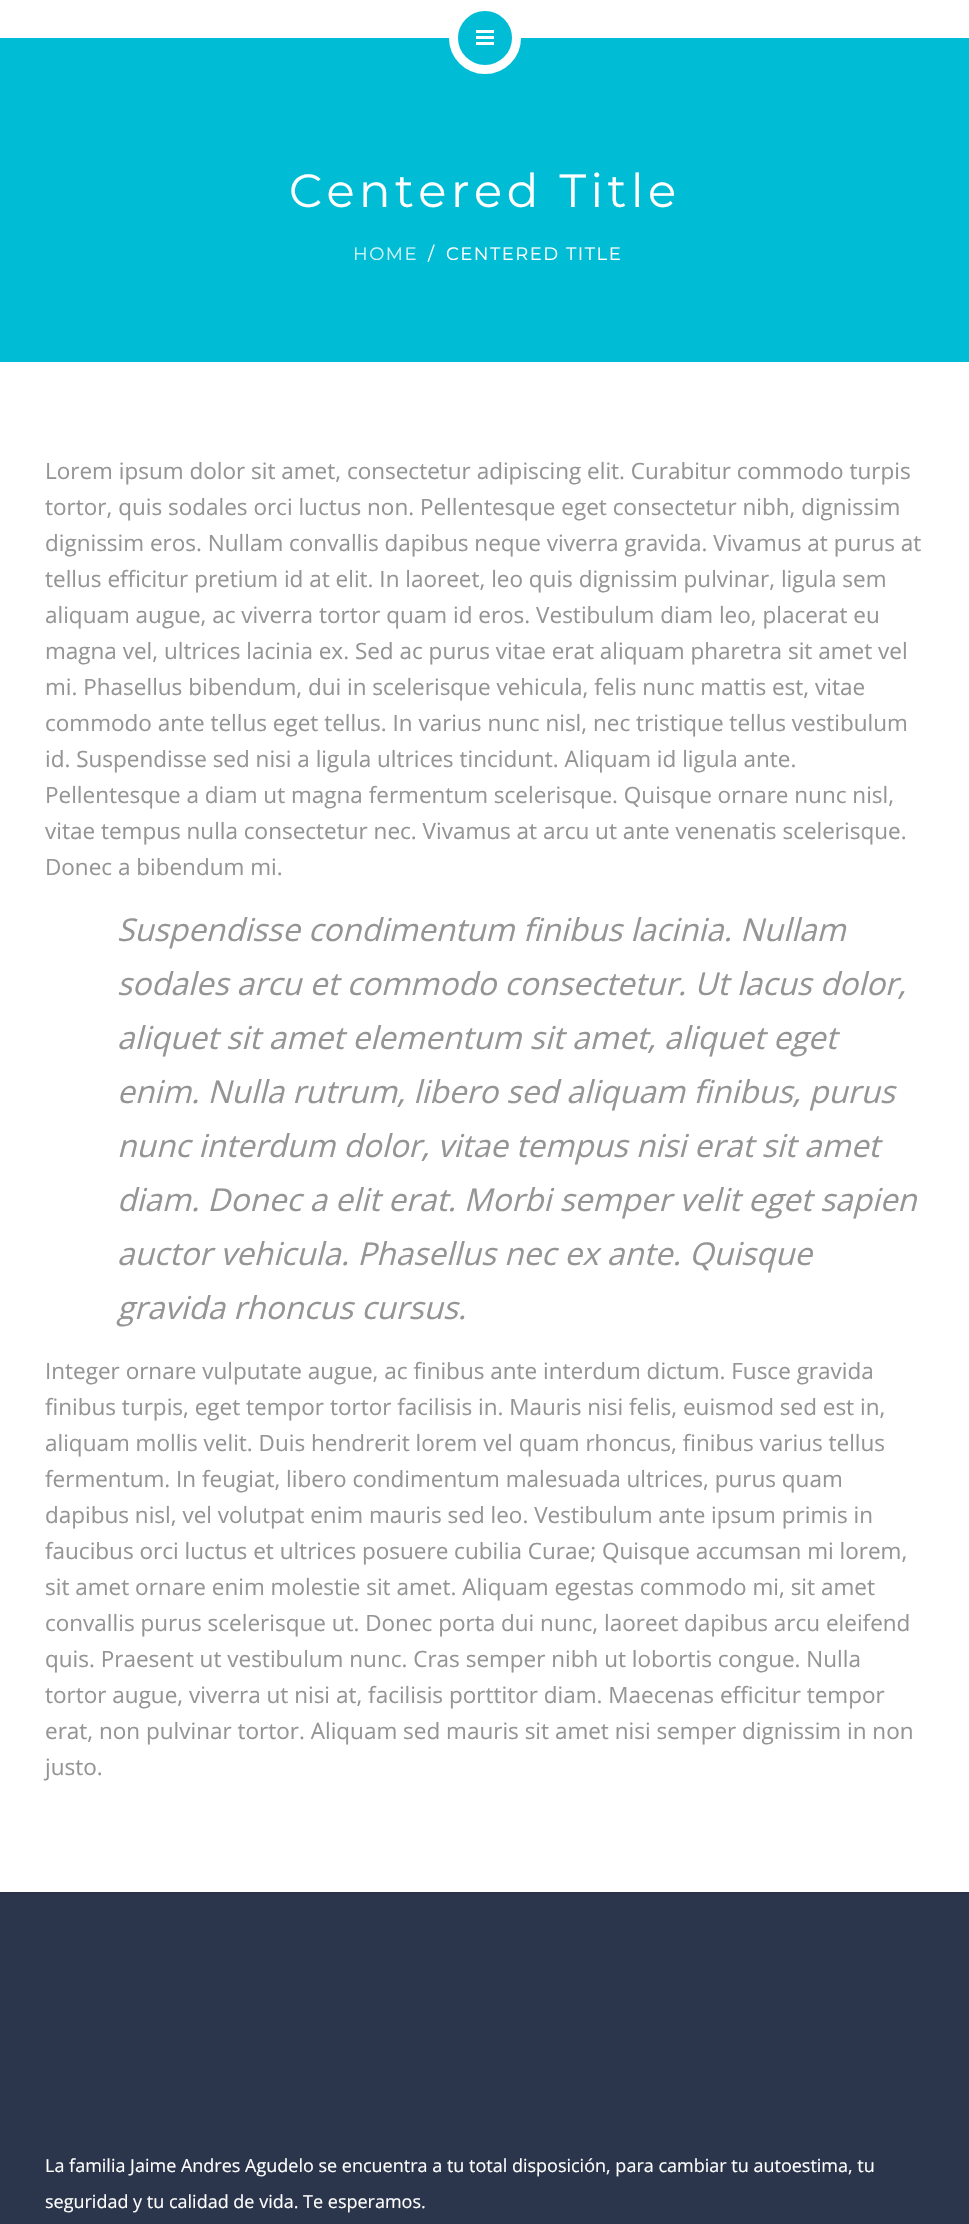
#include "include/core/SkBlurTypes.h"
#include "include/core/SkCanvas.h"
#include "include/core/SkData.h"
#include "include/core/SkFont.h"
#include "include/core/SkFontMgr.h"
#include "include/core/SkImage.h"
#include "include/core/SkMaskFilter.h"
#include "include/core/SkPaint.h"
#include "include/core/SkPathBuilder.h"
#include "include/core/SkTextBlob.h"
#include "include/effects/SkDashPathEffect.h"
#include "include/effects/SkGradientShader.h"
#include "include/utils/SkParsePath.h"

extern sk_sp<SkFontMgr> fontMgr;

void draw(SkCanvas* canvas) {
    SkPaint p;
    p.setAntiAlias(true);
    auto font = [&](const char* family, int weight, float size, bool italic = false) {
        SkFontStyle style(weight, SkFontStyle::kNormal_Width,
            italic ? SkFontStyle::kItalic_Slant : SkFontStyle::kUpright_Slant);
        SkFont result(fontMgr->matchFamilyStyle(family, style), size);
        result.setSubpixel(true);
        return result;
    };
    auto drawTracked = [&](const char* s, float x, float y, const SkFont& font, const SkPaint& ink, float letter, float word) {
        std::vector<SkGlyphID> glyphs(font.countText(s, strlen(s), SkTextEncoding::kUTF8));
        std::vector<float> xs(glyphs.size());
        font.textToGlyphs(s, strlen(s), SkTextEncoding::kUTF8, glyphs);
        font.getXPos(glyphs, xs, x);
        float extra = 0;
        for (size_t i = 0; i < glyphs.size(); i++) {
            xs[i] += extra;
            extra += letter + word * (glyphs[i] == font.unicharToGlyph(' '));
        }
        canvas->drawTextBlob(SkTextBlob::MakeFromPosHGlyphs(glyphs, xs, y, font), 0, 0, ink);
    };
    canvas->clear(0xFFFFFFFF);
    p.setColor(0xFF00BCD4);
    canvas->drawRect(SkRect::MakeLTRB(0, 38, 969, 362), p);
    canvas->drawCircle(485, 38, 31.5f, p);
    p.setStyle(SkPaint::kStroke_Style);
    p.setStrokeWidth(9);
    p.setColor(0xFFFFFFFF);
    canvas->drawCircle(485, 38, 31.5f, p);
    p.setStyle(SkPaint::kFill_Style);
    {
        const struct { float l, t, r, b; SkColor color; } items[] = {
            {476, 30, 494, 33, 0xFFFFFFFF},
            {476, 36, 494, 39, 0xFFFFFFFF},
            {476, 42, 494, 45, 0xFFFFFFFF},
        };
        for (auto [l, t, r, b, color] : items) {
            p.setColor(color);
            canvas->drawRect(SkRect::MakeLTRB(l, t, r, b), p);
        }
    }
    auto font1 = font("Montserrat", 100, 46.5f);
    drawTracked("Centered Title", 289, 207, font1, p, 4.5f, 0);
    auto font2 = font("Montserrat", 100, 18);
    p.setColor(0xFFCCF2F6);
    drawTracked("HOME", 353, 260, font2, p, 1.5f, 0);
    p.setColor(0xFFFFFFFF);
    drawTracked("/", 428, 260, font2, p, 1.5f, 0);
    drawTracked("CENTERED TITLE", 446, 260, font2, p, 1.5f, 0);
    auto font3 = font("Open Sans", 400, 22.5f);
    p.setColor(0xFF959595);
    {
        const struct { const char* s; float x, y; } items[] = {
            {"Lorem ipsum dolor sit amet, consectetur adipiscing elit. Curabitur commodo turpis", 45, 479},
            {"tortor, quis sodales orci luctus non. Pellentesque eget consectetur nibh, dignissim", 45, 515},
            {"dignissim eros. Nullam convallis dapibus neque viverra gravida. Vivamus at purus at", 45, 551},
            {"tellus efficitur pretium id at elit. In laoreet, leo quis dignissim pulvinar, ligula sem", 45, 587},
            {"aliquam augue, ac viverra tortor quam id eros. Vestibulum diam leo, placerat eu", 45, 623},
            {"magna vel, ultrices lacinia ex. Sed ac purus vitae erat aliquam pharetra sit amet vel", 45, 659},
            {"mi. Phasellus bibendum, dui in scelerisque vehicula, felis nunc mattis est, vitae", 45, 695},
            {"commodo ante tellus eget tellus. In varius nunc nisl, nec tristique tellus vestibulum", 45, 731},
            {"id. Suspendisse sed nisi a ligula ultrices tincidunt. Aliquam id ligula ante.", 45, 767},
            {"Pellentesque a diam ut magna fermentum scelerisque. Quisque ornare nunc nisl,", 45, 803},
            {"vitae tempus nulla consectetur nec. Vivamus at arcu ut ante venenatis scelerisque.", 45, 839},
            {"Donec a bibendum mi.", 45, 875},
        };
        for (auto [s, x, y] : items) {
            canvas->drawString(s, x, y, font3, p);
        }
    }
    auto font4 = font("Open Sans", 400, 31.5f, true);
    {
        const struct { const char* s; float x, y; } items[] = {
            {"Suspendisse condimentum finibus lacinia. Nullam", 117, 941},
            {"sodales arcu et commodo consectetur. Ut lacus dolor,", 117, 995},
            {"aliquet sit amet elementum sit amet, aliquet eget", 117, 1049},
            {"enim. Nulla rutrum, libero sed aliquam finibus, purus", 117, 1103},
            {"nunc interdum dolor, vitae tempus nisi erat sit amet", 117, 1157},
            {"diam. Donec a elit erat. Morbi semper velit eget sapien", 117, 1211},
            {"auctor vehicula. Phasellus nec ex ante. Quisque", 117, 1265},
            {"gravida rhoncus cursus.", 117, 1319},
        };
        for (auto [s, x, y] : items) {
            canvas->drawString(s, x, y, font4, p);
        }
    }
    {
        const struct { const char* s; float x, y; } items[] = {
            {"Integer ornare vulputate augue, ac finibus ante interdum dictum. Fusce gravida", 45, 1379},
            {"finibus turpis, eget tempor tortor facilisis in. Mauris nisi felis, euismod sed est in,", 45, 1415},
            {"aliquam mollis velit. Duis hendrerit lorem vel quam rhoncus, finibus varius tellus", 45, 1451},
            {"fermentum. In feugiat, libero condimentum malesuada ultrices, purus quam", 45, 1487},
            {"dapibus nisl, vel volutpat enim mauris sed leo. Vestibulum ante ipsum primis in", 45, 1523},
            {"faucibus orci luctus et ultrices posuere cubilia Curae; Quisque accumsan mi lorem,", 45, 1559},
            {"sit amet ornare enim molestie sit amet. Aliquam egestas commodo mi, sit amet", 45, 1595},
            {"convallis purus scelerisque ut. Donec porta dui nunc, laoreet dapibus arcu eleifend", 45, 1631},
            {"quis. Praesent ut vestibulum nunc. Cras semper nibh ut lobortis congue. Nulla", 45, 1667},
            {"tortor augue, viverra ut nisi at, facilisis porttitor diam. Maecenas efficitur tempor", 45, 1703},
            {"erat, non pulvinar tortor. Aliquam sed mauris sit amet nisi semper dignissim in non", 45, 1739},
            {"justo.", 45, 1775},
        };
        for (auto [s, x, y] : items) {
            canvas->drawString(s, x, y, font3, p);
        }
    }
    p.setColor(0xFF2B354B);
    canvas->drawRect(SkRect::MakeLTRB(0, 1894, 969, 2224), p);
    p.setColor(0xFF293247);
    canvas->drawRect(SkRect::MakeLTRB(0, 1892, 969, 1894), p);
    auto font5 = font("Open Sans", 400, 18);
    p.setColor(0xFFFFFFFF);
    canvas->drawString("La familia Jaime Andres Agudelo se encuentra a tu total disposición, para cambiar tu autoestima, tu", 45, 2172, font5, p);
    canvas->drawString("seguridad y tu calidad de vida. Te esperamos.", 45, 2208, font5, p);
}
